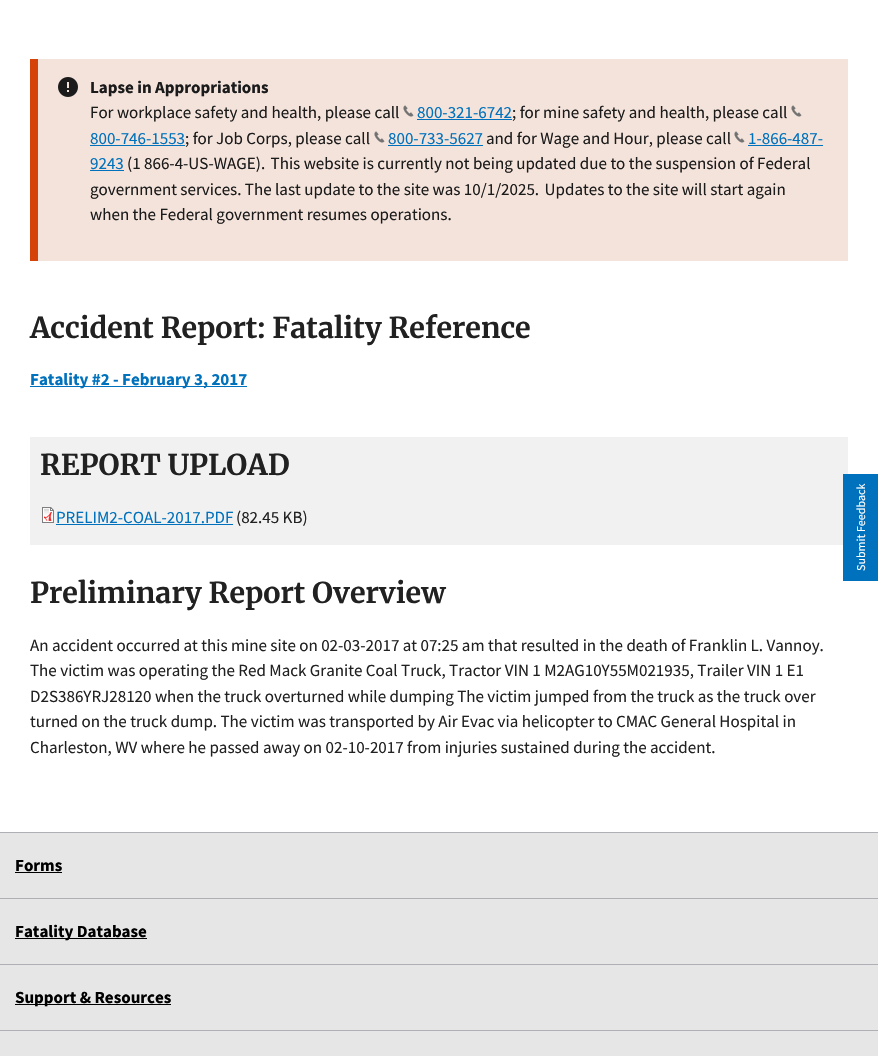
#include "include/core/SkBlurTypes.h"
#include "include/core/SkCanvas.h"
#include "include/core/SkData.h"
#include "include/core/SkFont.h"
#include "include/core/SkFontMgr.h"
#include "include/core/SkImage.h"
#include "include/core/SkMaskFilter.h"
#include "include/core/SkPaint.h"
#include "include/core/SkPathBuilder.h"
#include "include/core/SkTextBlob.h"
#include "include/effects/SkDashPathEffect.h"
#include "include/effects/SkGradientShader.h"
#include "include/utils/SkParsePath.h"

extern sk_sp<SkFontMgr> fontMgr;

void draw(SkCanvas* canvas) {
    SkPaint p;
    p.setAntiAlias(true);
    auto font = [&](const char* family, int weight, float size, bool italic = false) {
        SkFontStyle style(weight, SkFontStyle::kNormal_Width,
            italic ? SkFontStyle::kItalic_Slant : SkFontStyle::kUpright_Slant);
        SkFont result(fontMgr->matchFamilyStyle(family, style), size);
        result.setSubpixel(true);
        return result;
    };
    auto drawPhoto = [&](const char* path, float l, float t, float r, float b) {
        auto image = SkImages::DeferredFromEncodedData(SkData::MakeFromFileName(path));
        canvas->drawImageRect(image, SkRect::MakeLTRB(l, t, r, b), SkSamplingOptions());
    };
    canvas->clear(0xFFFFFFFF);
    p.setColor(0xFFF4E3DB);
    canvas->drawRect(SkRect::MakeLTRB(38, 59, 848, 261), p);
    p.setColor(0xFFD54309);
    canvas->drawRect(SkRect::MakeLTRB(30, 59, 38, 261), p);
    drawPhoto("media/1.png", 58, 77, 78, 97);
    auto font1 = font("Source Sans Pro", 700, 17);
    p.setColor(0xFF1B1B1B);
    canvas->drawString("Lapse in Appropriations", 90, 93, font1, p);
    auto font2 = font("Source Sans Pro", 400, 17);
    canvas->drawString("For workplace safety and health, please call", 90, 118, font2, p);
    drawPhoto("media/2.png", 403, 105, 414, 117);
    p.setColor(0xFF0071BC);
    canvas->drawString("800-321-6742", 417, 118, font2, p);
    canvas->drawRect(SkRect::MakeLTRB(417, 119, 512, 120), p);
    p.setColor(0xFF1B1B1B);
    canvas->drawString("; for mine safety and health, please call", 512, 118, font2, p);
    drawPhoto("media/2.png", 791, 105, 802, 117);
    p.setColor(0xFF0071BC);
    canvas->drawString("800-746-1553", 90, 144, font2, p);
    canvas->drawRect(SkRect::MakeLTRB(90, 145, 185, 146), p);
    p.setColor(0xFF1B1B1B);
    canvas->drawString("; for Job Corps, please call", 185, 144, font2, p);
    drawPhoto("media/2.png", 374, 131, 385, 143);
    p.setColor(0xFF0071BC);
    canvas->drawString("800-733-5627", 388, 144, font2, p);
    canvas->drawRect(SkRect::MakeLTRB(388, 145, 483, 146), p);
    p.setColor(0xFF1B1B1B);
    canvas->drawString("and for Wage and Hour, please call", 486, 144, font2, p);
    drawPhoto("media/2.png", 734, 131, 745, 143);
    p.setColor(0xFF0071BC);
    canvas->drawString("1-866-487-", 748, 144, font2, p);
    canvas->drawRect(SkRect::MakeLTRB(748, 145, 823, 146), p);
    canvas->drawString("9243", 90, 169, font2, p);
    canvas->drawRect(SkRect::MakeLTRB(90, 170, 124, 171), p);
    p.setColor(0xFF1B1B1B);
    {
        const struct { const char* s; float x, y; } items[] = {
            {"(1 866-4-US-WAGE).  This website is currently not being updated due to the suspension of Federal", 127, 169},
            {"government services. The last update to the site was 10/1/2025.  Updates to the site will start again", 90, 195},
            {"when the Federal government resumes operations.", 90, 220},
        };
        for (auto [s, x, y] : items) {
            canvas->drawString(s, x, y, font2, p);
        }
    }
    auto font3 = font("Merriweather", 700, 28.75f);
    p.setColor(0xFF212121);
    canvas->drawString("Accident Report: Fatality Reference", 30, 338, font3, p);
    p.setColor(0xFF0071BC);
    canvas->drawRect(SkRect::MakeLTRB(30, 386, 247, 387), p);
    canvas->drawString("Fatality #2 - February 3, 2017", 30, 385, font1, p);
    p.setColor(0xFFF1F1F1);
    canvas->drawRect(SkRect::MakeLTRB(30, 437, 848, 545), p);
    p.setColor(0xFF212121);
    canvas->drawString("REPORT UPLOAD", 40, 475, font3, p);
    drawPhoto("media/3.png", 42, 507, 54, 523);
    p.setColor(0xFF0071BC);
    canvas->drawString("PRELIM2-COAL-2017.PDF", 56, 523, font2, p);
    canvas->drawRect(SkRect::MakeLTRB(56, 524, 233, 525), p);
    p.setColor(0xFF212121);
    canvas->drawString("(82.45 KB)", 236, 523, font2, p);
    canvas->drawString("Preliminary Report Overview", 30, 603, font3, p);
    {
        const struct { const char* s; float x, y; } items[] = {
            {"An accident occurred at this mine site on 02-03-2017 at 07:25 am that resulted in the death of Franklin L. Vannoy.", 30, 651},
            {"The victim was operating the Red Mack Granite Coal Truck, Tractor VIN 1 M2AG10Y55M021935, Trailer VIN 1 E1", 30, 676},
            {"D2S386YRJ28120 when the truck overturned while dumping The victim jumped from the truck as the truck over", 30, 702},
            {"turned on the truck dump. The victim was transported by Air Evac via helicopter to CMAC General Hospital in", 30, 727},
            {"Charleston, WV where he passed away on 02-10-2017 from injuries sustained during the accident.", 30, 753},
        };
        for (auto [s, x, y] : items) {
            canvas->drawString(s, x, y, font2, p);
        }
    }
    p.setColor(0xFFE6E6E6);
    canvas->drawRect(SkRect::MakeLTRB(0, 833, 878, 1056), p);
    p.setColor(0xFFAEB0B5);
    canvas->drawRect(SkRect::MakeLTRB(0, 832, 878, 833), p);
    p.setColor(0xFF000000);
    canvas->drawString("Forms", 15, 871, font1, p);
    {
        const struct { float l, t, r, b; SkColor color; } items[] = {
            {15, 872, 62, 873, 0xFF000000},
            {0, 898, 878, 899, 0xFFAEB0B5},
            {15, 938, 147, 939, 0xFF000000},
        };
        for (auto [l, t, r, b, color] : items) {
            p.setColor(color);
            canvas->drawRect(SkRect::MakeLTRB(l, t, r, b), p);
        }
    }
    canvas->drawString("Fatality Database", 15, 937, font1, p);
    p.setColor(0xFFAEB0B5);
    canvas->drawRect(SkRect::MakeLTRB(0, 964, 878, 965), p);
    p.setColor(0xFF000000);
    canvas->drawRect(SkRect::MakeLTRB(15, 1004, 171, 1005), p);
    canvas->drawString("Support & Resources", 15, 1003, font1, p);
    p.setColor(0xFFAEB0B5);
    canvas->drawRect(SkRect::MakeLTRB(0, 1030, 878, 1031), p);
    p.setColor(0xFF0071BC);
    canvas->drawRect(SkRect::MakeLTRB(843, 474, 878, 581), p);
    auto font4 = font("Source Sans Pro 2", 400, 12);
    p.setColor(0xFFFFFFFF);
    canvas->save();
    canvas->rotate(-90, 865, 571);
    canvas->drawString("Submit Feedback", 865, 571, font4, p);
    canvas->restore();
}
